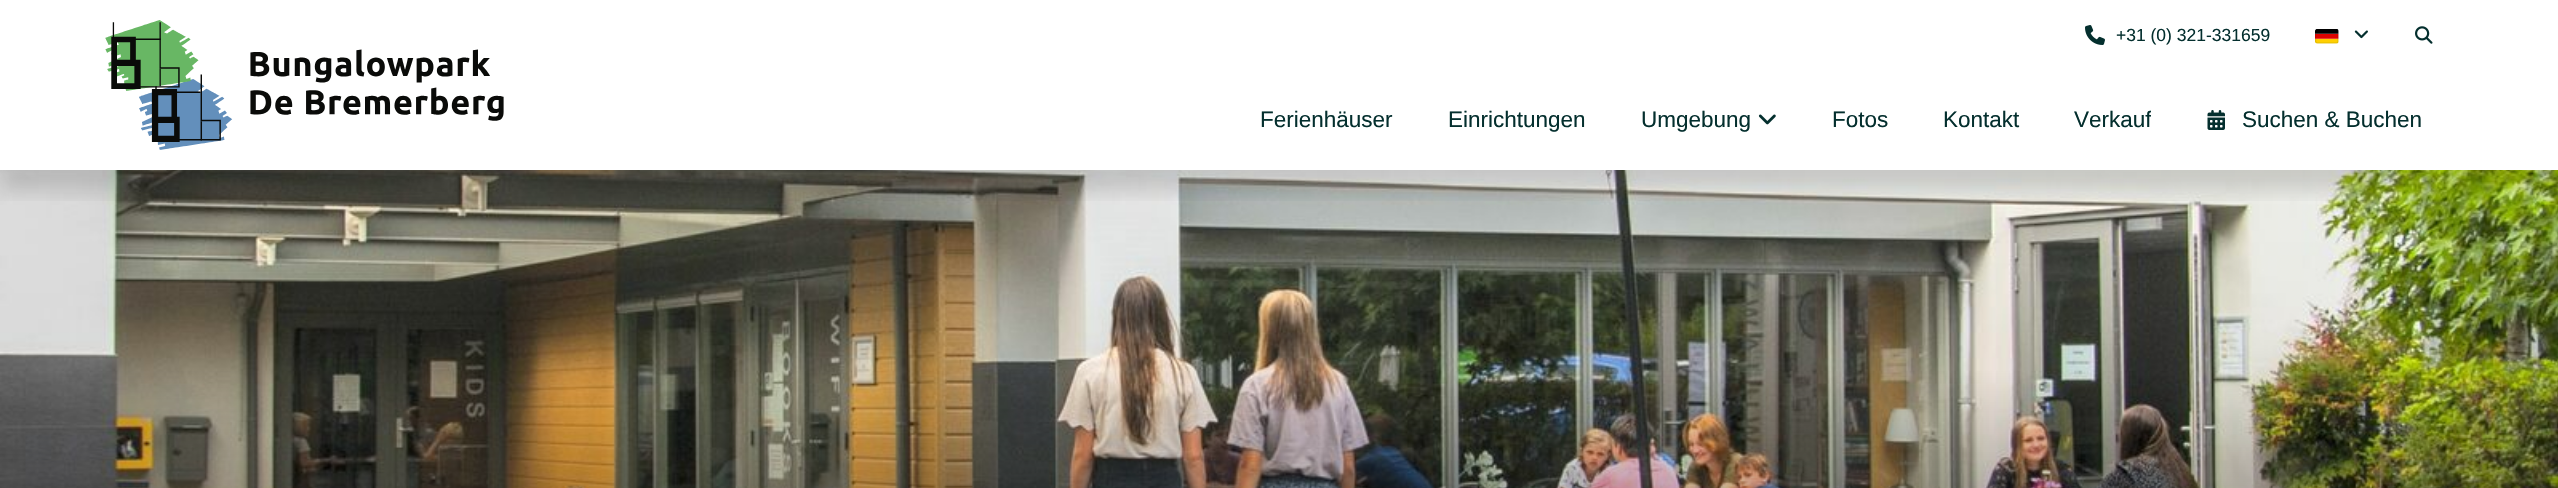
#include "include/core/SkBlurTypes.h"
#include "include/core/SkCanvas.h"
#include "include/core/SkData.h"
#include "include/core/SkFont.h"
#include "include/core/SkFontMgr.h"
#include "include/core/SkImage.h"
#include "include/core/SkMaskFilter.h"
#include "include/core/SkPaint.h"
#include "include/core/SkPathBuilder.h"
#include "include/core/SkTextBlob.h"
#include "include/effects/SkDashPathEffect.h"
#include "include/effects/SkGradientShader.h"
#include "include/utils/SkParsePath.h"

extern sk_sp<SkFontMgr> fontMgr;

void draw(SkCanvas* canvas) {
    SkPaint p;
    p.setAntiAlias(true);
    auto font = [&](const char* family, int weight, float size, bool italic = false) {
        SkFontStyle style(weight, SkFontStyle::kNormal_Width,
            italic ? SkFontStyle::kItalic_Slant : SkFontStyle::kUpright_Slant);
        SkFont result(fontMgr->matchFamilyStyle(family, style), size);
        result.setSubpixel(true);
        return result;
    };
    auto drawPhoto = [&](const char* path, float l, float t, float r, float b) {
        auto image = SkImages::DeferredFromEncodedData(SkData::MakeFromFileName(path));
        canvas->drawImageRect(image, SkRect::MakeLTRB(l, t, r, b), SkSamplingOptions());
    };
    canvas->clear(0xFFFFFFFF);
    drawPhoto("media/8.png", 0, 170, 2558, 488);
    canvas->save();
    canvas->clipRect(SkRect::MakeLTRB(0, 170, 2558, 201));
    p.setColor(0x26000000);
    p.setMaskFilter(SkMaskFilter::MakeBlur(kNormal_SkBlurStyle, 10));
    canvas->drawRect(SkRect::MakeLTRB(0, 90, 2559, 190), p);
    p.setMaskFilter(nullptr);
    canvas->restore();
    drawPhoto("media/1.png", 105, 20, 504, 150);
    drawPhoto("media/2.png", 2085, 25, 2105, 45);
    auto font1 = font("Liberation Sans", 400, 17.5f);
    p.setColor(0xFF042F2E);
    canvas->drawString("+31 (0) 321-331659", 2116, 41, font1, p);
    drawPhoto("media/3.png", 2315, 29, 2339, 44);
    drawPhoto("media/4.png", 2354, 30, 2368, 39);
    drawPhoto("media/5.png", 2415, 26, 2433, 44);
    auto font2 = font("Liberation Sans", 400, 22.5f);
    {
        const struct { const char* s; float x, y; } items[] = {
            {"Ferienhäuser", 1260, 127},
            {"Einrichtungen", 1448, 127},
            {"Umgebung", 1641, 127},
        };
        for (auto [s, x, y] : items) {
            canvas->drawString(s, x, y, font2, p);
        }
    }
    drawPhoto("media/6.png", 1758, 114, 1776, 125);
    canvas->drawString("Fotos", 1832, 127, font2, p);
    canvas->drawString("Kontakt", 1943, 127, font2, p);
    canvas->save();
    canvas->clipRect(SkRect::MakeLTRB(2074, 104, 2151, 138));
    canvas->drawString("Verkauf", 2074, 127, font2, p);
    canvas->restore();
    drawPhoto("media/7.png", 2207, 110, 2225, 130);
    canvas->drawString("Suchen & Buchen", 2242, 127, font2, p);
}
